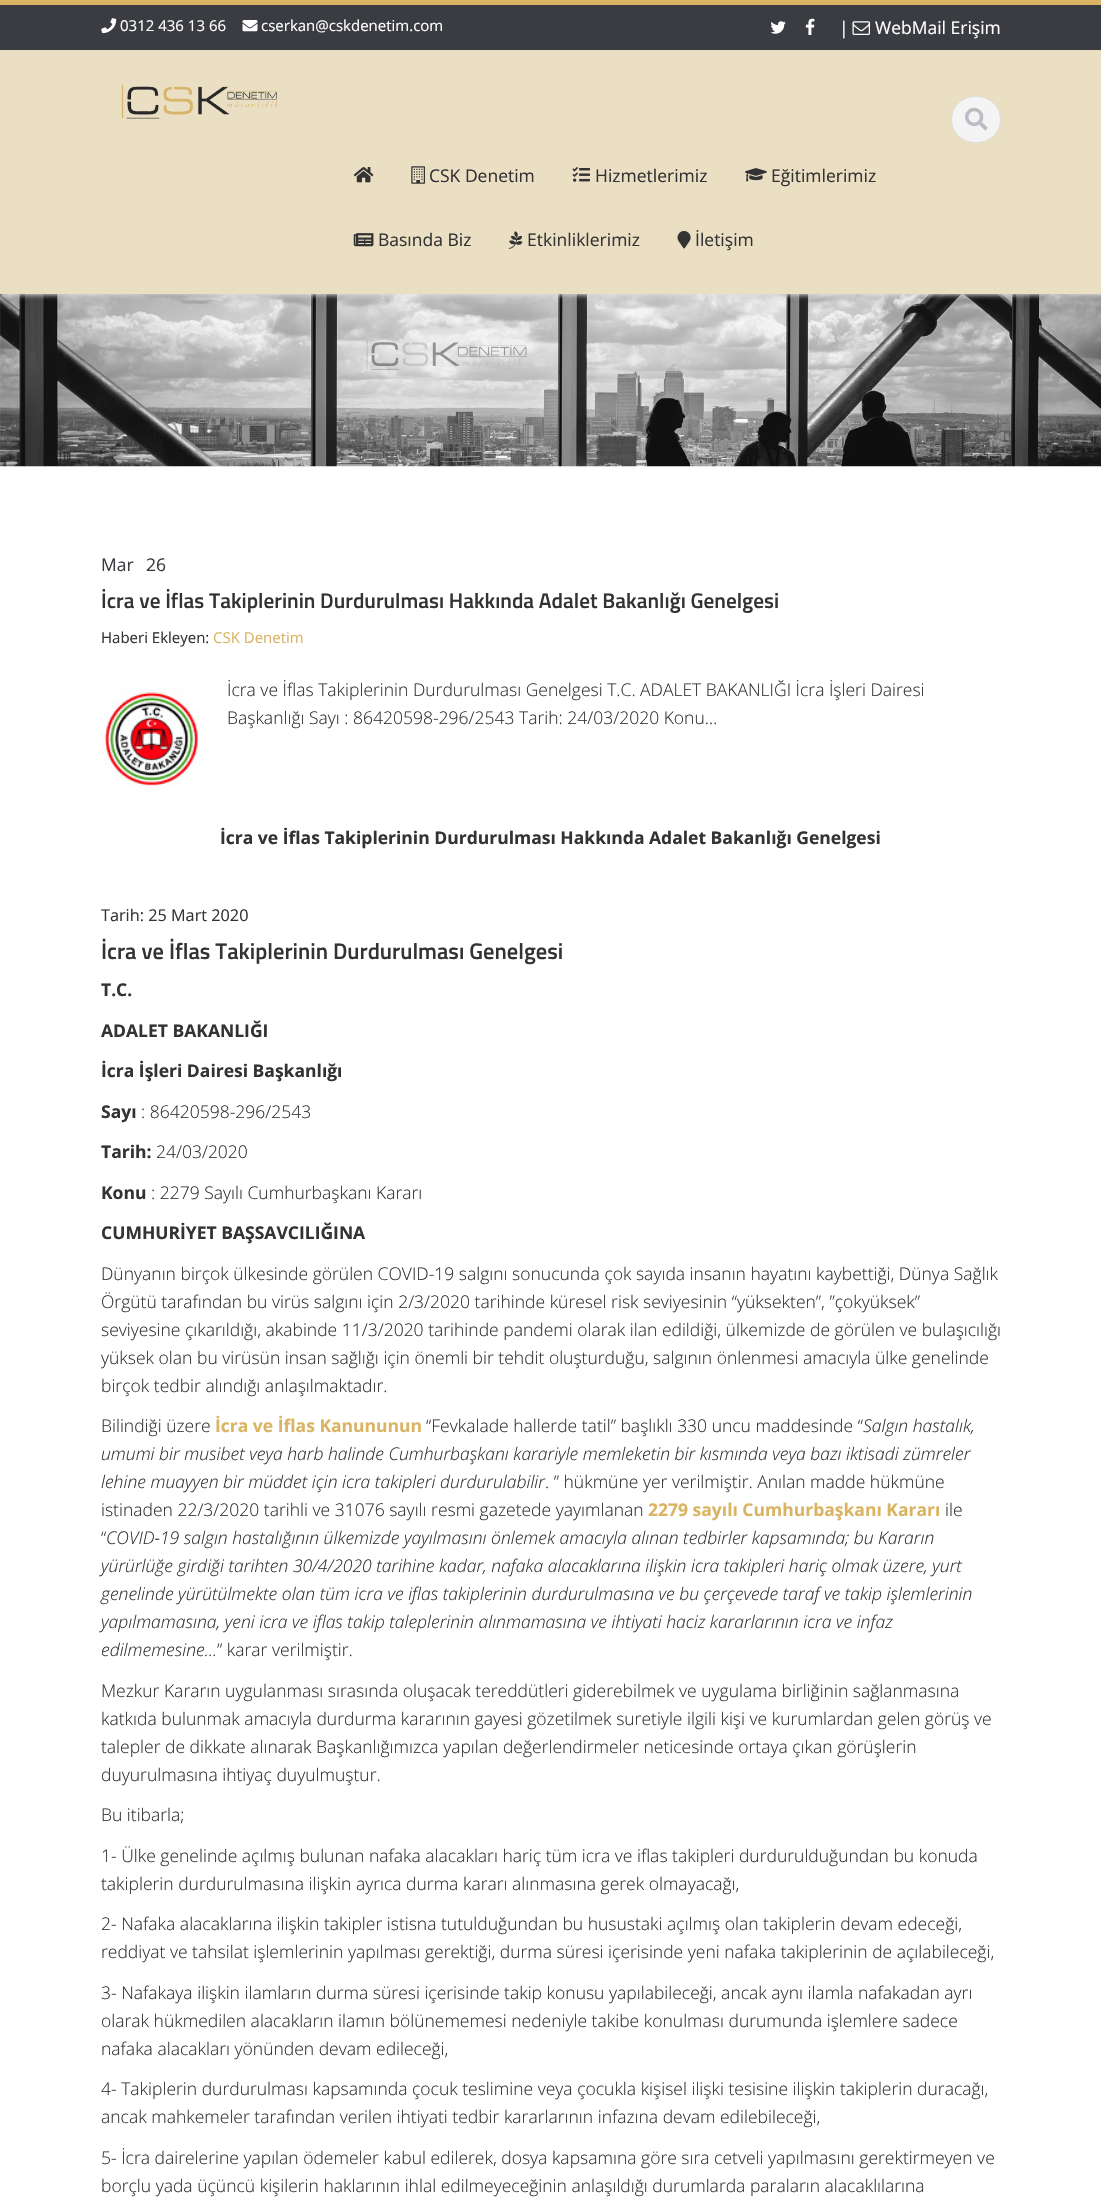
#include "include/core/SkBlurTypes.h"
#include "include/core/SkCanvas.h"
#include "include/core/SkData.h"
#include "include/core/SkFont.h"
#include "include/core/SkFontMgr.h"
#include "include/core/SkImage.h"
#include "include/core/SkMaskFilter.h"
#include "include/core/SkPaint.h"
#include "include/core/SkPathBuilder.h"
#include "include/core/SkTextBlob.h"
#include "include/effects/SkDashPathEffect.h"
#include "include/effects/SkGradientShader.h"
#include "include/utils/SkParsePath.h"

extern sk_sp<SkFontMgr> fontMgr;

void draw(SkCanvas* canvas) {
    SkPaint p;
    p.setAntiAlias(true);
    auto font = [&](const char* family, int weight, float size, bool italic = false) {
        SkFontStyle style(weight, SkFontStyle::kNormal_Width,
            italic ? SkFontStyle::kItalic_Slant : SkFontStyle::kUpright_Slant);
        SkFont result(fontMgr->matchFamilyStyle(family, style), size);
        result.setSubpixel(true);
        return result;
    };
    auto drawPhoto = [&](const char* path, float l, float t, float r, float b) {
        auto image = SkImages::DeferredFromEncodedData(SkData::MakeFromFileName(path));
        canvas->drawImageRect(image, SkRect::MakeLTRB(l, t, r, b), SkSamplingOptions());
    };
    canvas->clear(0xFFFFFFFF);
    drawPhoto("media/15.png", 0, 294, 1101, 467);
    p.setColor(0xFFDDDDDD);
    p.setMaskFilter(SkMaskFilter::MakeBlur(kNormal_SkBlurStyle, 2.5f));
    canvas->drawRect(SkRect::MakeLTRB(1, 1, 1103, 295), p);
    p.setMaskFilter(nullptr);
    p.setColor(0xFF3A3C41);
    canvas->drawRect(SkRect::MakeLTRB(0, 5, 1101, 50), p);
    p.setColor(0xFFDAB463);
    canvas->drawRect(SkRect::MakeLTRB(0, 0, 1101, 5), p);
    drawPhoto("media/1.png", 101, 18, 117, 34);
    auto font1 = font("Open Sans", 400, 15);
    p.setColor(0xFFFFFFFF);
    canvas->drawString("0312 436 13 66", 120, 31, font1, p);
    drawPhoto("media/2.png", 242, 20, 258, 32);
    canvas->drawString("cserkan@cskdenetim.com", 261, 31, font1, p);
    drawPhoto("media/3.png", 770, 21, 786, 34);
    drawPhoto("media/4.png", 805, 18, 815, 35);
    auto font2 = font("Open Sans", 400, 17.5f);
    canvas->drawString("|", 839, 34, font2, p);
    drawPhoto("media/5.png", 852, 21, 870, 35);
    canvas->drawString("WebMail Erişim", 875, 34, font2, p);
    p.setColor(0xFFEADEC3);
    canvas->drawRect(SkRect::MakeLTRB(0, 50, 1101, 294), p);
    drawPhoto("media/6.png", 121, 84, 279, 119);
    p.setColor(0xFFF4F4F4);
    canvas->drawRoundRect(SkRect::MakeLTRB(951.5f, 96.5f, 1000.5f, 142.5f), 23, 23, p);
    p.setStyle(SkPaint::kStroke_Style);
    p.setStrokeWidth(1);
    p.setColor(0xFFDDDDDD);
    canvas->drawRoundRect(SkRect::MakeLTRB(951.5f, 96.5f, 1000.5f, 142.5f), 23, 23, p);
    drawPhoto("media/7.png", 965, 107, 988, 131);
    drawPhoto("media/8.png", 353, 167, 374, 183);
    drawPhoto("media/9.png", 411, 166, 425, 184);
    p.setStyle(SkPaint::kFill_Style);
    p.setColor(0xFF333333);
    canvas->drawString("CSK Denetim", 429, 182, font2, p);
    drawPhoto("media/10.png", 572, 167, 590, 182);
    canvas->drawString("Hizmetlerimiz", 595, 182, font2, p);
    drawPhoto("media/11.png", 745, 168, 767, 182);
    canvas->drawString("Eğitimlerimiz", 771, 182, font2, p);
    drawPhoto("media/12.png", 353, 233, 374, 247);
    canvas->drawString("Basında Biz", 378, 246, font2, p);
    drawPhoto("media/13.png", 508, 231, 523, 249);
    canvas->drawString("Etkinliklerimiz", 527, 246, font2, p);
    drawPhoto("media/14.png", 677, 231, 691, 249);
    canvas->drawString("İletişim", 695, 246, font2, p);
    p.setColor(0xFF3A3C41);
    canvas->drawString("Mar", 101, 571, font2, p);
    canvas->drawString("26", 146, 571, font2, p);
    auto font3 = font("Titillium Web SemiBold", 600, 21.25f);
    p.setColor(0xFF333333);
    canvas->drawString("İcra ve İflas Takiplerinin Durdurulması Hakkında Adalet Bakanlığı Genelgesi", 101, 608, font3, p);
    canvas->drawString("Haberi Ekleyen:", 101, 643, font1, p);
    p.setColor(0xFFDAB463);
    canvas->drawString("CSK Denetim", 213, 643, font1, p);
    drawPhoto("media/16.png", 103, 689, 201, 789);
    auto font4 = font("Open Sans", 300, 17.5f);
    p.setColor(0xFF333333);
    canvas->drawString("İcra ve İflas Takiplerinin Durdurulması Genelgesi T.C. ADALET BAKANLIĞI İcra İşleri Dairesi", 227, 696, font4, p);
    canvas->drawString("Başkanlığı Sayı : 86420598-296/2543 Tarih: 24/03/2020 Konu…", 227, 724, font4, p);
    auto font5 = font("Open Sans", 700, 17.5f);
    canvas->drawString("İcra ve İflas Takiplerinin Durdurulması Hakkında Adalet Bakanlığı Genelgesi", 220, 844, font5, p);
    auto font6 = font("Open Sans", 400, 16.25f);
    canvas->drawString("Tarih: 25 Mart 2020", 101, 921, font6, p);
    auto font7 = font("Titillium Web SemiBold", 600, 22.5f);
    canvas->drawString("İcra ve İflas Takiplerinin Durdurulması Genelgesi", 101, 959, font7, p);
    {
        const struct { const char* s; float x, y; } items[] = {
            {"T.C.", 101, 996},
            {"ADALET BAKANLIĞI", 101, 1037},
            {"İcra İşleri Dairesi Başkanlığı", 101, 1077},
            {"Sayı", 101, 1118},
        };
        for (auto [s, x, y] : items) {
            canvas->drawString(s, x, y, font5, p);
        }
    }
    canvas->drawString(": 86420598-296/2543", 141, 1118, font4, p);
    canvas->drawString("Tarih:", 101, 1158, font5, p);
    canvas->drawString("24/03/2020", 156, 1158, font4, p);
    canvas->drawString("Konu", 101, 1199, font5, p);
    canvas->drawString(": 2279 Sayılı Cumhurbaşkanı Kararı", 151, 1199, font4, p);
    canvas->drawString("CUMHURİYET BAŞSAVCILIĞINA", 101, 1239, font5, p);
    {
        const struct { const char* s; float x, y; } items[] = {
            {"Dünyanın birçok ülkesinde görülen COVID-19 salgını sonucunda çok sayıda insanın hayatını kaybettiği, Dünya Sağlık", 101, 1280},
            {"Örgütü tarafından bu virüs salgını için 2/3/2020 tarihinde küresel risk seviyesinin “yüksekten”, ”çokyüksek”", 101, 1308},
            {"seviyesine çıkarıldığı, akabinde 11/3/2020 tarihinde pandemi olarak ilan edildiği, ülkemizde de görülen ve bulaşıcılığı", 101, 1336},
            {"yüksek olan bu virüsün insan sağlığı için önemli bir tehdit oluşturduğu, salgının önlenmesi amacıyla ülke genelinde", 101, 1364},
            {"birçok tedbir alındığı anlaşılmaktadır.", 101, 1392},
            {"Bilindiği üzere", 101, 1432},
        };
        for (auto [s, x, y] : items) {
            canvas->drawString(s, x, y, font4, p);
        }
    }
    p.setColor(0xFFDAB463);
    canvas->drawString("İcra ve İflas Kanununun", 215, 1432, font5, p);
    p.setColor(0xFF333333);
    canvas->drawString("“Fevkalade hallerde tatil” başlıklı 330 uncu maddesinde “", 426, 1432, font4, p);
    auto font8 = font("Open Sans", 300, 17.5f, true);
    {
        const struct { const char* s; float x, y; } items[] = {
            {"Salgın hastalık,", 863, 1432},
            {"umumi bir musibet veya harb halinde Cumhurbaşkanı karariyle memleketin bir kısmında veya bazı iktisadi zümreler", 101, 1460},
            {"lehine muayyen bir müddet için icra takipleri durdurulabilir", 101, 1488},
        };
        for (auto [s, x, y] : items) {
            canvas->drawString(s, x, y, font8, p);
        }
    }
    canvas->drawString(". ” hükmüne yer verilmiştir. Anılan madde hükmüne", 545, 1488, font4, p);
    canvas->drawString("istinaden 22/3/2020 tarihli ve 31076 sayılı resmi gazetede yayımlanan", 101, 1516, font4, p);
    p.setColor(0xFFDAB463);
    canvas->drawString("2279 sayılı Cumhurbaşkanı Kararı", 648, 1516, font5, p);
    p.setColor(0xFF333333);
    canvas->drawString("ile", 945, 1516, font4, p);
    canvas->drawString("“", 101, 1544, font4, p);
    {
        const struct { const char* s; float x, y; } items[] = {
            {"COVID-19 salgın hastalığının ülkemizde yayılmasını önlemek amacıyla alınan tedbirler kapsamında; bu Kararın", 106, 1544},
            {"yürürlüğe girdiği tarihten 30/4/2020 tarihine kadar, nafaka alacaklarına ilişkin icra takipleri hariç olmak üzere, yurt", 101, 1572},
            {"genelinde yürütülmekte olan tüm icra ve iflas takiplerinin durdurulmasına ve bu çerçevede taraf ve takip işlemlerinin", 101, 1600},
            {"yapılmamasına, yeni icra ve iflas takip taleplerinin alınmamasına ve ihtiyati haciz kararlarının icra ve infaz", 101, 1628},
            {"edilmemesine…", 101, 1656},
        };
        for (auto [s, x, y] : items) {
            canvas->drawString(s, x, y, font8, p);
        }
    }
    {
        const struct { const char* s; float x, y; } items[] = {
            {"” karar verilmiştir.", 217, 1656},
            {"Mezkur Kararın uygulanması sırasında oluşacak tereddütleri giderebilmek ve uygulama birliğinin sağlanmasına", 101, 1697},
            {"katkıda bulunmak amacıyla durdurma kararının gayesi gözetilmek suretiyle ilgili kişi ve kurumlardan gelen görüş ve", 101, 1725},
            {"talepler de dikkate alınarak Başkanlığımızca yapılan değerlendirmeler neticesinde ortaya çıkan görüşlerin", 101, 1753},
            {"duyurulmasına ihtiyaç duyulmuştur.", 101, 1781},
            {"Bu itibarla;", 101, 1821},
            {"1- Ülke genelinde açılmış bulunan nafaka alacakları hariç tüm icra ve iflas takipleri durdurulduğundan bu konuda", 101, 1862},
            {"takiplerin durdurulmasına ilişkin ayrıca durma kararı alınmasına gerek olmayacağı,", 101, 1890},
            {"2- Nafaka alacaklarına ilişkin takipler istisna tutulduğundan bu husustaki açılmış olan takiplerin devam edeceği,", 101, 1930},
            {"reddiyat ve tahsilat işlemlerinin yapılması gerektiği, durma süresi içerisinde yeni nafaka takiplerinin de açılabileceği,", 101, 1958},
            {"3- Nafakaya ilişkin ilamların durma süresi içerisinde takip konusu yapılabileceği, ancak aynı ilamla nafakadan ayrı", 101, 1999},
            {"olarak hükmedilen alacakların ilamın bölünememesi nedeniyle takibe konulması durumunda işlemlere sadece", 101, 2027},
            {"nafaka alacakları yönünden devam edileceği,", 101, 2055},
            {"4- Takiplerin durdurulması kapsamında çocuk teslimine veya çocukla kişisel ilişki tesisine ilişkin takiplerin duracağı,", 101, 2095},
            {"ancak mahkemeler tarafından verilen ihtiyati tedbir kararlarının infazına devam edilebileceği,", 101, 2123},
            {"5- İcra dairelerine yapılan ödemeler kabul edilerek, dosya kapsamına göre sıra cetveli yapılmasını gerektirmeyen ve", 101, 2164},
            {"borçlu yada üçüncü kişilerin haklarının ihlal edilmeyeceğinin anlaşıldığı durumlarda paraların alacaklılarına", 101, 2192},
        };
        for (auto [s, x, y] : items) {
            canvas->drawString(s, x, y, font4, p);
        }
    }
}
